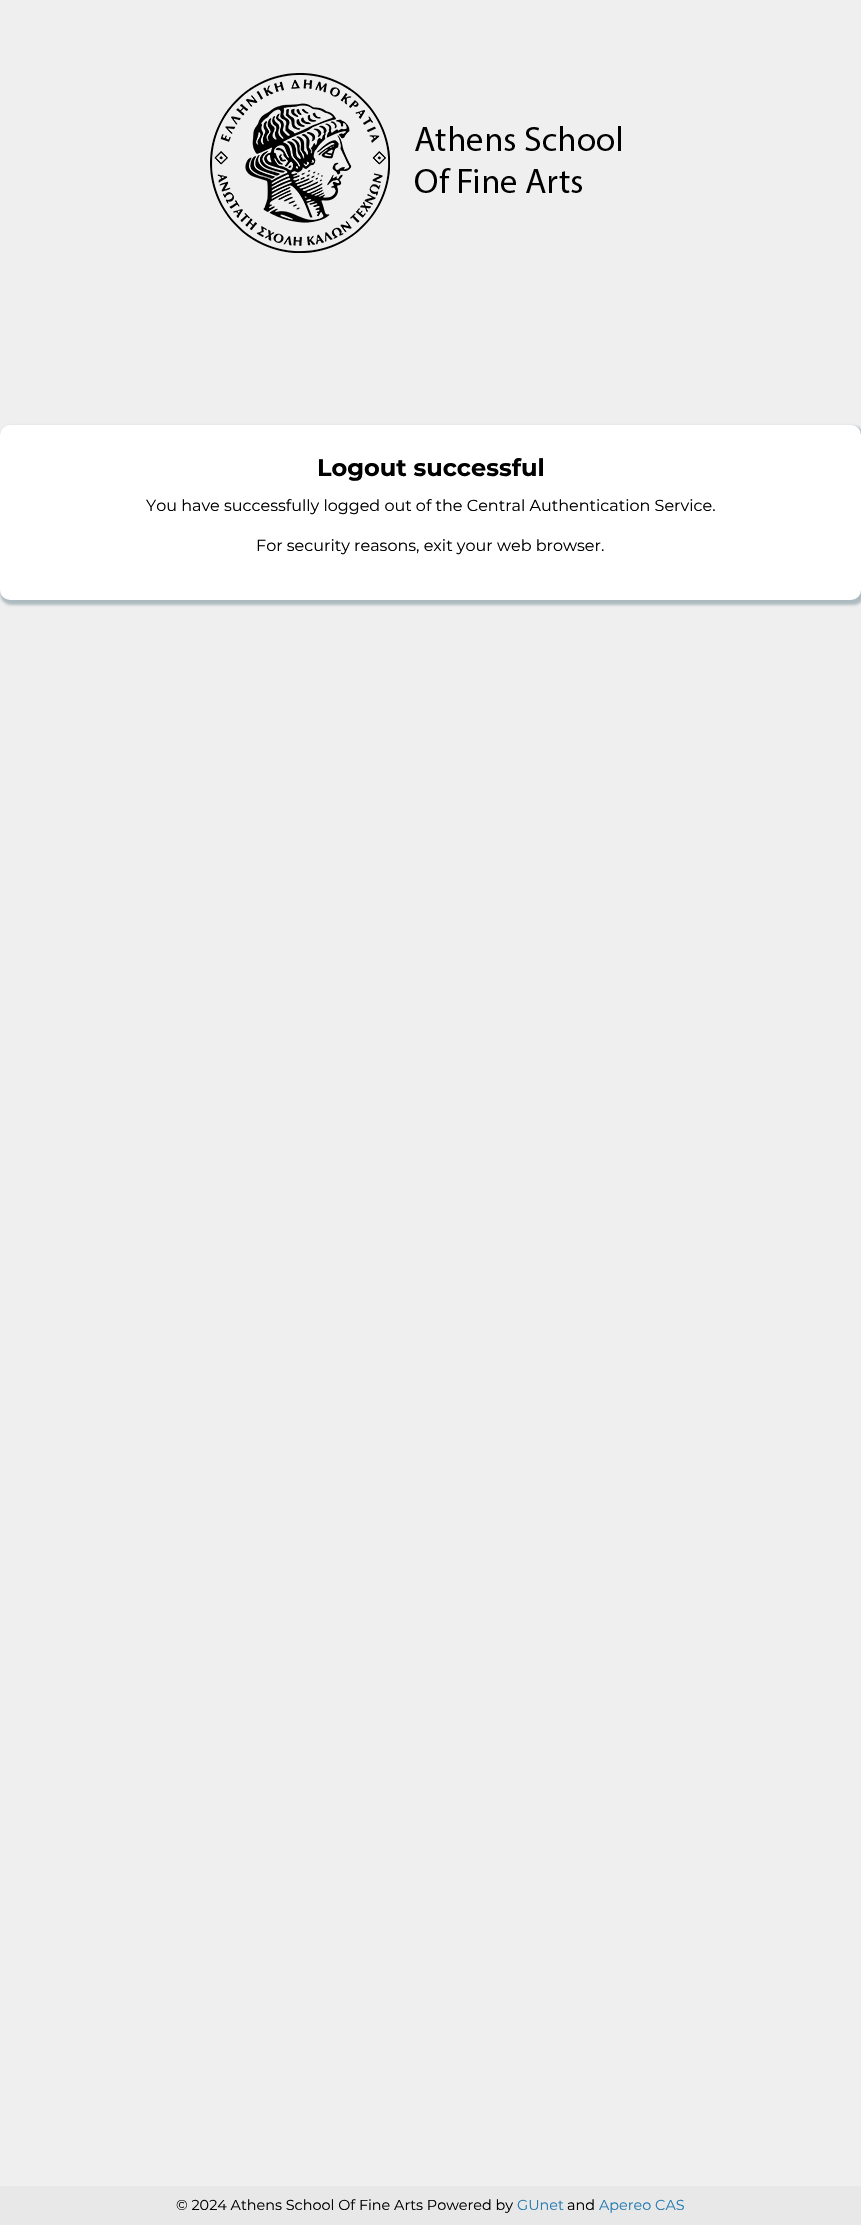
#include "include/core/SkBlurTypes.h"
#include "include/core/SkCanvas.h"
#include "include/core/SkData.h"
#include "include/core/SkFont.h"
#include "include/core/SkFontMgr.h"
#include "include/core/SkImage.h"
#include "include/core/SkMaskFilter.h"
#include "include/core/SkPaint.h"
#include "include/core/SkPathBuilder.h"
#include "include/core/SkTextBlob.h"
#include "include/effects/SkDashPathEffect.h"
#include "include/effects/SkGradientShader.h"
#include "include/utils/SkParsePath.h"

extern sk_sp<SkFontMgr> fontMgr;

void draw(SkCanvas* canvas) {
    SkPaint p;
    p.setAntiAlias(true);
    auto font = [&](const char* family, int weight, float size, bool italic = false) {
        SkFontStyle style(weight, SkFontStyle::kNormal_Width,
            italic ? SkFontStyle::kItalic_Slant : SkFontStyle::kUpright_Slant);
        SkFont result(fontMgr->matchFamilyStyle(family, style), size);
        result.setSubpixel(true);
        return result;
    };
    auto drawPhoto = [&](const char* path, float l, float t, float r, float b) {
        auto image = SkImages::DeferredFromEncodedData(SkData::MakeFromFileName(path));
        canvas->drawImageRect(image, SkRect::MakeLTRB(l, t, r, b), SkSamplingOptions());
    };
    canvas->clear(0xFFEFEFEF);
    drawPhoto("media/1.png", 210, 73, 621, 253);
    p.setColor(0x4D153E50);
    p.setMaskFilter(SkMaskFilter::MakeBlur(kNormal_SkBlurStyle, 1.5f));
    canvas->drawRoundRect(SkRect::MakeLTRB(0, 426, 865, 605), 12, 12, p);
    p.setMaskFilter(nullptr);
    p.setColor(0xFFFFFFFF);
    canvas->drawRoundRect(SkRect::MakeLTRB(0, 425, 861, 600), 10, 10, p);
    auto font1 = font("Montserrat", 700, 24);
    p.setColor(0xFF000000);
    canvas->drawString("Logout successful", 317, 476, font1, p);
    auto font2 = font("Montserrat", 400, 16);
    canvas->drawString("You have successfully logged out of the Central Authentication Service.", 146, 511, font2, p);
    canvas->drawString("For security reasons, exit your web browser.", 256, 551, font2, p);
    p.setColor(0xFFE8E8E8);
    canvas->drawRect(SkRect::MakeLTRB(0, 2186, 861, 2225), p);
    auto font3 = font("Montserrat", 400, 14.4f);
    p.setColor(0xFF000000);
    canvas->drawString("© 2024 Athens School Of Fine Arts Powered by", 176, 2210, font3, p);
    p.setColor(0xFF257BB2);
    canvas->drawString("GUnet", 517, 2210, font3, p);
    p.setColor(0xFF000000);
    canvas->drawString("and", 567, 2210, font3, p);
    p.setColor(0xFF257BB2);
    canvas->drawString("Apereo CAS", 599, 2210, font3, p);
}
